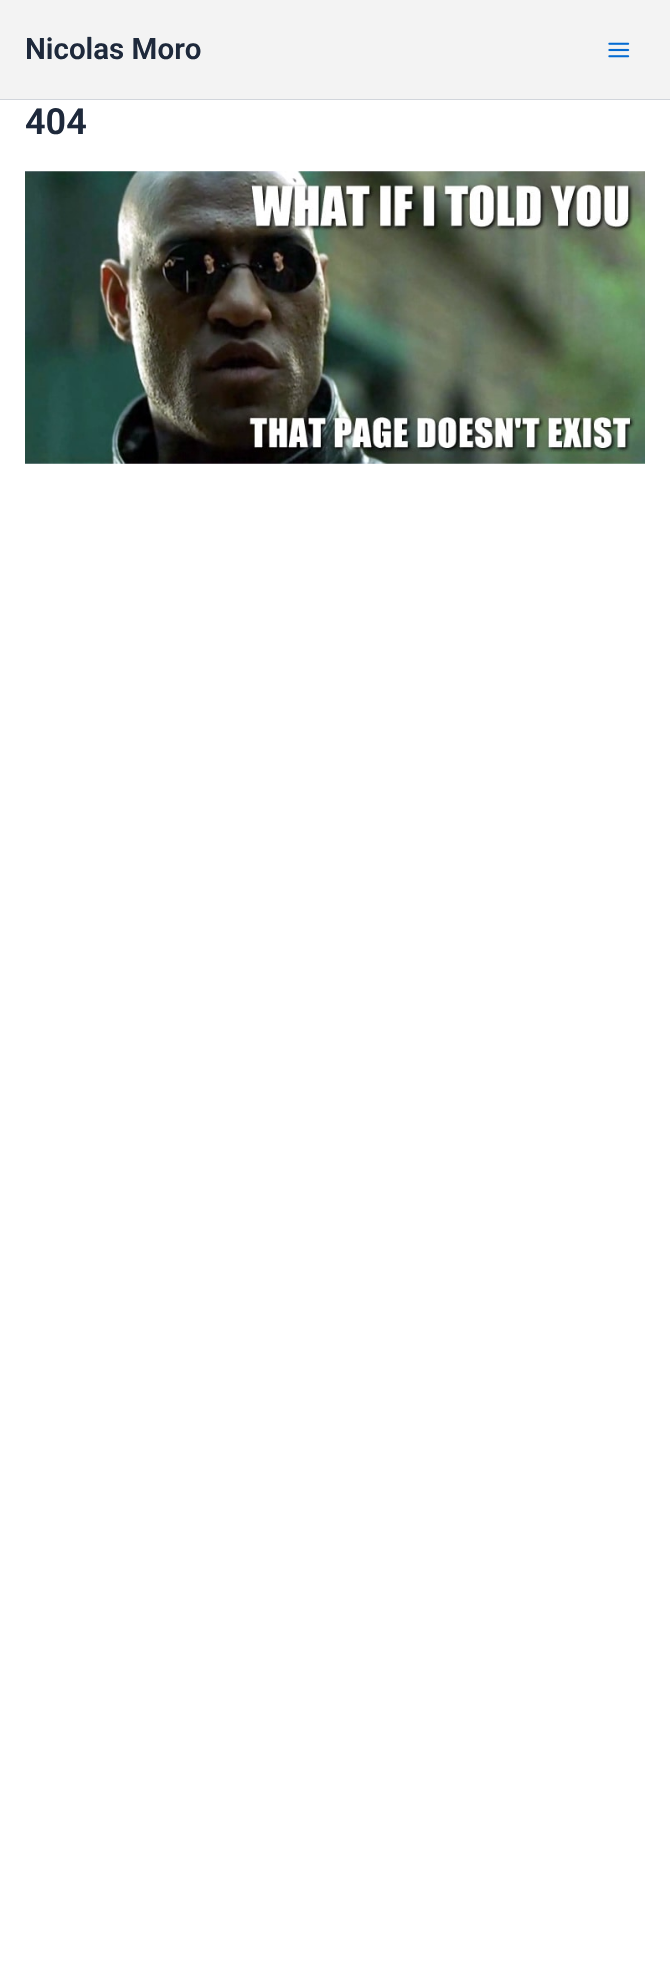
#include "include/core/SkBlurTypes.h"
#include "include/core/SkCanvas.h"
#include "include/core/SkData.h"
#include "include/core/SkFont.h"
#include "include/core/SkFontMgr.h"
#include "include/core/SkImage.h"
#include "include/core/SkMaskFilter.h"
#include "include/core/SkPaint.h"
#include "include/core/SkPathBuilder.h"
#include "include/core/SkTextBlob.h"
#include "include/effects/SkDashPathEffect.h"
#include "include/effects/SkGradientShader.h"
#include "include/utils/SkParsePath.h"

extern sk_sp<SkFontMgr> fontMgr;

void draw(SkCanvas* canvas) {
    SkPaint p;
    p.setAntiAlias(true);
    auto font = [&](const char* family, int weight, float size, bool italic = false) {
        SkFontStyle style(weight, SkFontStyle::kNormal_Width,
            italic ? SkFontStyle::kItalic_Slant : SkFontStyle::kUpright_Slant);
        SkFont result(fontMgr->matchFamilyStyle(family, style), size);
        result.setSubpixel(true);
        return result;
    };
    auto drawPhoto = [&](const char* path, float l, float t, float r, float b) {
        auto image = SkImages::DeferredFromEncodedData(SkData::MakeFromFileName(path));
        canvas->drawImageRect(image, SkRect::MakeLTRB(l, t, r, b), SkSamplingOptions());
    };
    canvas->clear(0xFFFFFFFF);
    p.setColor(0xFFF3F3F3);
    canvas->drawRect(SkRect::MakeLTRB(0, 0, 670, 99), p);
    p.setColor(0xFFD1D5DB);
    canvas->drawRect(SkRect::MakeLTRB(0, 99, 670, 100), p);
    auto font1 = font("Roboto", 600, 29.5f);
    p.setColor(0xFF1E293B);
    canvas->drawString("Nicolas Moro", 25, 59, font1, p);
    drawPhoto("media/1.png", 608, 42, 630, 58);
    auto font2 = font("Roboto", 600, 36);
    canvas->drawString("404", 25, 134, font2, p);
    drawPhoto("media/2.png", 25, 171, 645, 464);
}
